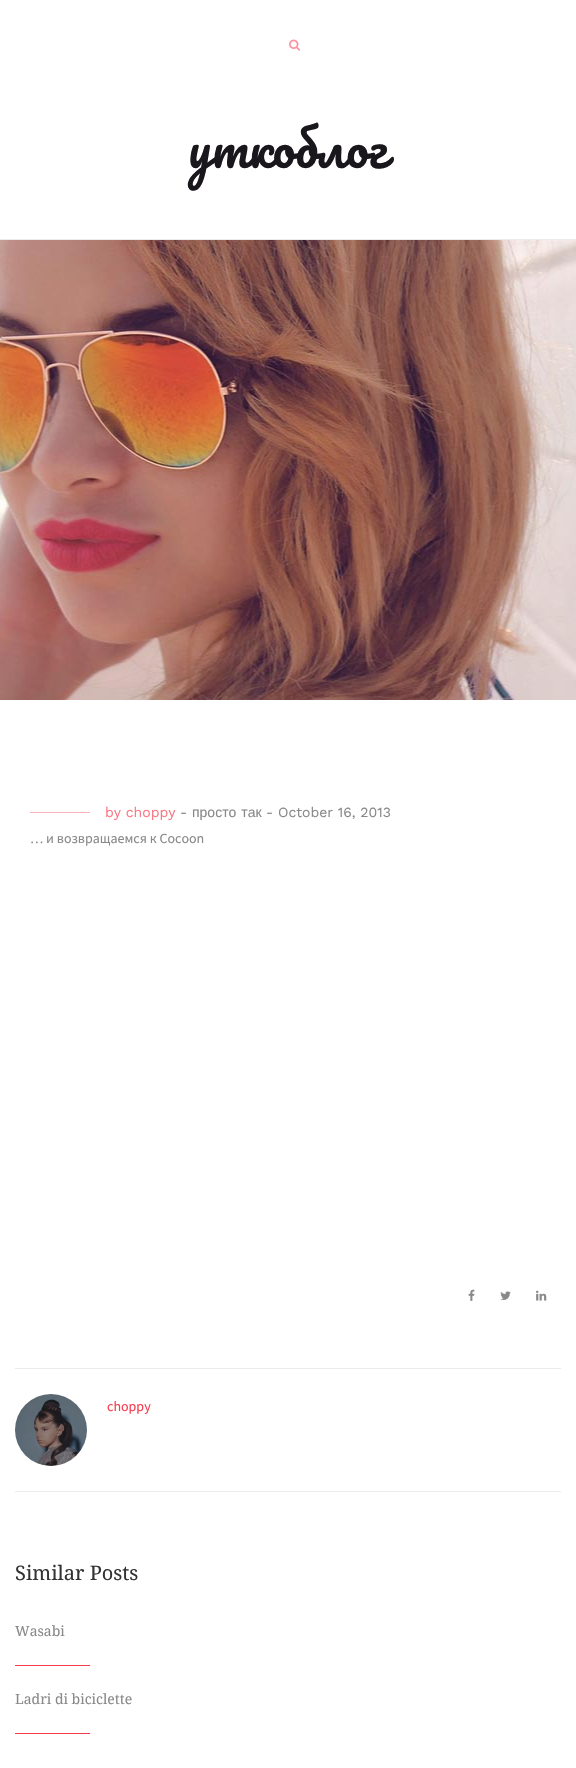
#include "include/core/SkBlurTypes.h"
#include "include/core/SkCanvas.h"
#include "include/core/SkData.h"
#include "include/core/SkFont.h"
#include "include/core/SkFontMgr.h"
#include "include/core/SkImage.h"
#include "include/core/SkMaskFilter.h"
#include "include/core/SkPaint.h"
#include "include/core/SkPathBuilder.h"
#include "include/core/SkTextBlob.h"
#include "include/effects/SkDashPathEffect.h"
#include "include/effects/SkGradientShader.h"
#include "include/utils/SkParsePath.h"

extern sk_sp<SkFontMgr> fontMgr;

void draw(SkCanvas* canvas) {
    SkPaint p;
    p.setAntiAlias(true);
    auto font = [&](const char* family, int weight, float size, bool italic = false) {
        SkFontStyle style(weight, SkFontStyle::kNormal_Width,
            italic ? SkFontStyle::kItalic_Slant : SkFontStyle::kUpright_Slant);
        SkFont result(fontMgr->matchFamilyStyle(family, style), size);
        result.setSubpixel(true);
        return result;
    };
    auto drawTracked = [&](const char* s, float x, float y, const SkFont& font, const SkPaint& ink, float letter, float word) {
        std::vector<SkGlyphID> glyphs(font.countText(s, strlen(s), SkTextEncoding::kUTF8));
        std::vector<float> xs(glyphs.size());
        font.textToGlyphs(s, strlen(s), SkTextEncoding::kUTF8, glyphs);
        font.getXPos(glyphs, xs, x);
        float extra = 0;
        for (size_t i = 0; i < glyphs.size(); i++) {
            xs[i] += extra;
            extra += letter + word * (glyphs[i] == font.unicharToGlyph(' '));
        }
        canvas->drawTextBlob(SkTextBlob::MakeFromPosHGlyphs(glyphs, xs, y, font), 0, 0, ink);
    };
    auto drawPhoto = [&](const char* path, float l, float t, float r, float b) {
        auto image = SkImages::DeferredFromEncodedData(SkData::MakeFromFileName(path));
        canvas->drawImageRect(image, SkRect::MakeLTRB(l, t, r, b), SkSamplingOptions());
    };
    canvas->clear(0xFFFFFFFF);
    p.setColor(0xFFEBEBEB);
    canvas->drawRect(SkRect::MakeLTRB(0, 239, 576, 240), p);
    drawPhoto("media/1.png", 289, 39, 301, 51);
    auto font1 = font("Pacifico", 400, 50);
    p.setColor(0xFF1A171C);
    canvas->drawString("уткоблог", 188, 168, font1, p);
    drawPhoto("media/2.png", 0, 240, 576, 700);
    p.setColor(0xFFFBB1B8);
    canvas->drawRect(SkRect::MakeLTRB(30, 812, 90, 813), p);
    auto font2 = font("Work Sans", 400, 14);
    p.setColor(0xFFF97783);
    canvas->drawString("by choppy", 105, 817, font2, p);
    p.setColor(0xFF898989);
    canvas->drawString("-", 180, 817, font2, p);
    auto font3 = font("Liberation Sans", 400, 14);
    drawTracked("просто так", 192, 817, font3, p, 0, 1);
    canvas->drawString("- October 16, 2013", 266, 817, font2, p);
    auto font4 = font("Source Sans Pro", 400, 14);
    canvas->drawString("… и возвращаемся к Сocoon", 30, 843, font4, p);
    drawPhoto("media/3.png", 468, 1289, 475, 1301);
    drawPhoto("media/4.png", 500, 1291, 511, 1300);
    drawPhoto("media/5.png", 536, 1290, 547, 1301);
    p.setColor(0xFFEBEBEB);
    canvas->drawRect(SkRect::MakeLTRB(15, 1368, 561, 1369), p);
    canvas->drawRect(SkRect::MakeLTRB(15, 1491, 561, 1492), p);
    drawPhoto("media/6.png", 15, 1394, 87, 1466);
    p.setColor(0xFFF63C4E);
    canvas->drawString("choppy", 107, 1411, font4, p);
    auto font5 = font("Droid Serif", 400, 20);
    p.setColor(0xFF333333);
    canvas->drawString("Similar Posts", 15, 1580, font5, p);
    auto font6 = font("Droid Serif", 400, 14);
    p.setColor(0xFF898989);
    canvas->drawString("Wasabi", 15, 1636, font6, p);
    p.setColor(0xFFF63C4E);
    canvas->drawRect(SkRect::MakeLTRB(15, 1665, 90, 1666), p);
    p.setColor(0xFF898989);
    canvas->drawString("Ladri di biciclette", 15, 1704, font6, p);
    p.setColor(0xFFF63C4E);
    canvas->drawRect(SkRect::MakeLTRB(15, 1733, 90, 1734), p);
}
